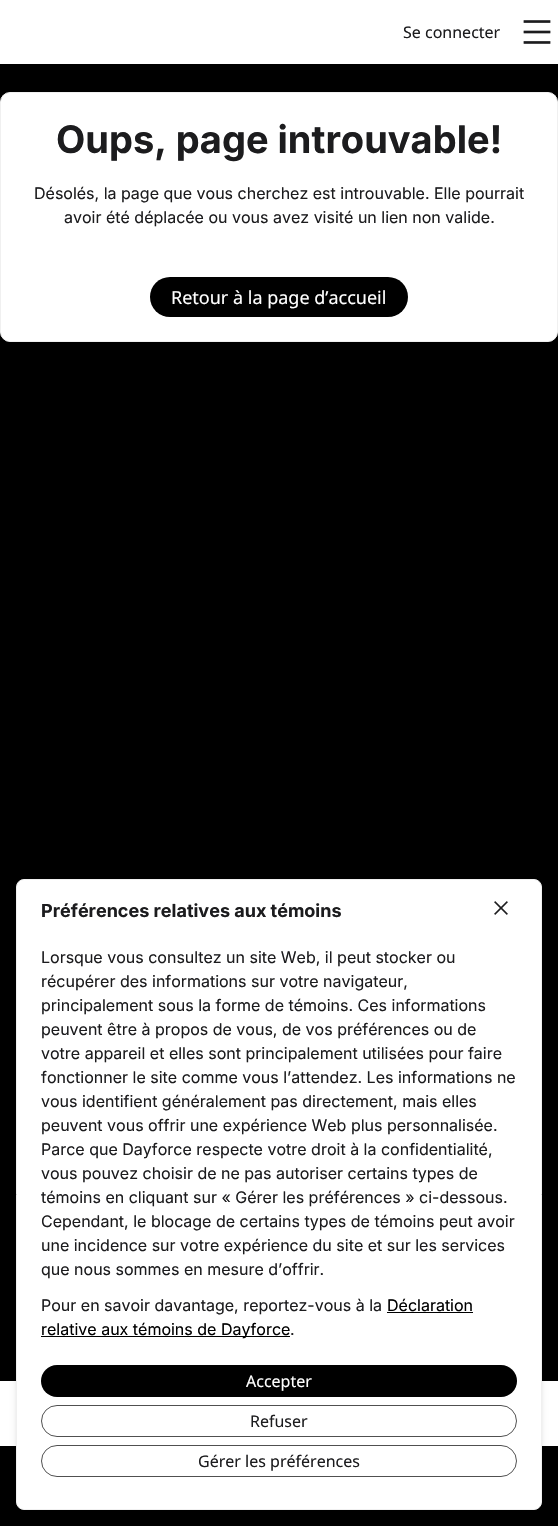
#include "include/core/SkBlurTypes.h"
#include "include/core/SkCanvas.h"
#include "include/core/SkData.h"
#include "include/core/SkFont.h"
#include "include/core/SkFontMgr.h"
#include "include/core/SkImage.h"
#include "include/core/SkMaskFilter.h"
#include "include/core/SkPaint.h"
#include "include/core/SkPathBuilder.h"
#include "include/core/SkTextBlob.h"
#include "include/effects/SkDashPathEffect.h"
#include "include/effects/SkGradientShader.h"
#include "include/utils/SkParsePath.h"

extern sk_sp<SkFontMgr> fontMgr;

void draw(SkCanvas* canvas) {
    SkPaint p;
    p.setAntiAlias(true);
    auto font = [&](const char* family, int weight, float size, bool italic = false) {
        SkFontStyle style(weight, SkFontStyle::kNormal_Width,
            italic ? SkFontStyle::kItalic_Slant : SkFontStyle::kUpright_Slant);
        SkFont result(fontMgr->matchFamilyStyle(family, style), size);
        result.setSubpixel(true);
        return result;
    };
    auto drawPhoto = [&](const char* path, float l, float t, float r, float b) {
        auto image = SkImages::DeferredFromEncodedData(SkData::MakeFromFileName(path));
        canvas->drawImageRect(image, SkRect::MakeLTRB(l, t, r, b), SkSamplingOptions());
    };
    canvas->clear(0xFFFFFFFF);
    auto font1 = font("Noto Sans", 400, 16);
    p.setColor(0xFF1C1C1E);
    canvas->drawString("Se connecter", 403, 38, font1, p);
    drawPhoto("media/1.png", 523, 20, 551, 44);
    p.setColor(0xFF000000);
    canvas->drawRect(SkRect::MakeLTRB(0, 64, 558, 1381), p);
    p.setColor(0xFFFFFFFF);
    canvas->drawRoundRect(SkRect::MakeLTRB(0.5f, 92.5f, 557.5f, 341.5f), 9.5f, 9.5f, p);
    p.setStyle(SkPaint::kStroke_Style);
    p.setStrokeWidth(1);
    p.setColor(0xFFF0F0F0);
    canvas->drawRoundRect(SkRect::MakeLTRB(0.5f, 92.5f, 557.5f, 341.5f), 9.5f, 9.5f, p);
    auto font2 = font("Inter", 700, 38);
    p.setStyle(SkPaint::kFill_Style);
    p.setColor(0xFF1C1C1E);
    canvas->drawString("Oups, page introuvable!", 56, 153, font2, p);
    auto font3 = font("Inter", 400, 16);
    canvas->drawString("Désolés, la page que vous cherchez est introuvable. Elle pourrait", 34, 199, font3, p);
    canvas->drawString("avoir été déplacée ou vous avez visité un lien non valide.", 64, 223, font3, p);
    p.setColor(0xFF000000);
    canvas->drawRoundRect(SkRect::MakeLTRB(150, 277, 408, 317), 20, 20, p);
    auto font4 = font("Noto Sans", 400, 18);
    p.setColor(0xFFFFFFFF);
    canvas->drawString("Retour à la page d’accueil", 171, 304, font4, p);
    p.setColor(0xFF000000);
    canvas->drawRect(SkRect::MakeLTRB(0, 1446, 558, 1526), p);
    p.setColor(0x1A000000);
    p.setMaskFilter(SkMaskFilter::MakeBlur(kNormal_SkBlurStyle, 2));
    canvas->drawRoundRect(SkRect::MakeLTRB(18, 883, 540, 1510), 6, 6, p);
    p.setMaskFilter(nullptr);
    p.setMaskFilter(SkMaskFilter::MakeBlur(kNormal_SkBlurStyle, 3));
    canvas->drawRoundRect(SkRect::MakeLTRB(17, 884, 541, 1513), 7, 7, p);
    p.setMaskFilter(nullptr);
    p.setColor(0xFFFFFFFF);
    canvas->drawRoundRect(SkRect::MakeLTRB(16.5f, 879.5f, 541.5f, 1509.5f), 7.5f, 7.5f, p);
    p.setStyle(SkPaint::kStroke_Style);
    p.setColor(0xFFF0F0F0);
    canvas->drawRoundRect(SkRect::MakeLTRB(16.5f, 879.5f, 541.5f, 1509.5f), 7.5f, 7.5f, p);
    auto font5 = font("Inter", 700, 18);
    p.setStyle(SkPaint::kFill_Style);
    p.setColor(0xFF1C1C1E);
    canvas->drawString("Préférences relatives aux témoins", 41, 917, font5, p);
    drawPhoto("media/2.png", 494, 901, 508, 915);
    {
        const struct { const char* s; float x, y; } items[] = {
            {"Lorsque vous consultez un site Web, il peut stocker ou", 41, 963},
            {"récupérer des informations sur votre navigateur,", 41, 987},
            {"principalement sous la forme de témoins. Ces informations", 41, 1011},
            {"peuvent être à propos de vous, de vos préférences ou de", 41, 1035},
            {"votre appareil et elles sont principalement utilisées pour faire", 41, 1059},
            {"fonctionner le site comme vous l’attendez. Les informations ne", 41, 1083},
            {"vous identifient généralement pas directement, mais elles", 41, 1107},
            {"peuvent vous offrir une expérience Web plus personnalisée.", 41, 1131},
            {"Parce que Dayforce respecte votre droit à la confidentialité,", 41, 1155},
            {"vous pouvez choisir de ne pas autoriser certains types de", 41, 1179},
            {"témoins en cliquant sur « Gérer les préférences » ci-dessous.", 41, 1203},
            {"Cependant, le blocage de certains types de témoins peut avoir", 41, 1227},
            {"une incidence sur votre expérience du site et sur les services", 41, 1251},
            {"que nous sommes en mesure d’offrir.", 41, 1275},
            {"Pour en savoir davantage, reportez-vous à la", 41, 1311},
        };
        for (auto [s, x, y] : items) {
            canvas->drawString(s, x, y, font3, p);
        }
    }
    p.setColor(0xFF000000);
    canvas->drawString("Déclaration", 387, 1311, font3, p);
    canvas->drawRect(SkRect::MakeLTRB(387, 1312, 473, 1313), p);
    canvas->drawRect(SkRect::MakeLTRB(41, 1336, 290, 1337), p);
    canvas->drawString("relative aux témoins de Dayforce", 41, 1335, font3, p);
    p.setColor(0xFF1C1C1E);
    canvas->drawString(".", 290, 1335, font3, p);
    p.setColor(0xFF000000);
    canvas->drawRoundRect(SkRect::MakeLTRB(41, 1365, 517, 1397), 16, 16, p);
    p.setColor(0xFFFFFFFF);
    canvas->drawString("Accepter", 246, 1387, font1, p);
    p.setStyle(SkPaint::kStroke_Style);
    p.setColor(0xFF505050);
    canvas->drawRoundRect(SkRect::MakeLTRB(41.5f, 1405.5f, 516.5f, 1436.5f), 15.5f, 15.5f, p);
    p.setStyle(SkPaint::kFill_Style);
    p.setColor(0xFF1C1C1E);
    canvas->drawString("Refuser", 250, 1427, font1, p);
    p.setStyle(SkPaint::kStroke_Style);
    p.setColor(0xFF505050);
    canvas->drawRoundRect(SkRect::MakeLTRB(41.5f, 1445.5f, 516.5f, 1476.5f), 15.5f, 15.5f, p);
    p.setStyle(SkPaint::kFill_Style);
    p.setColor(0xFF1C1C1E);
    canvas->drawString("Gérer les préférences", 198, 1467, font1, p);
}
